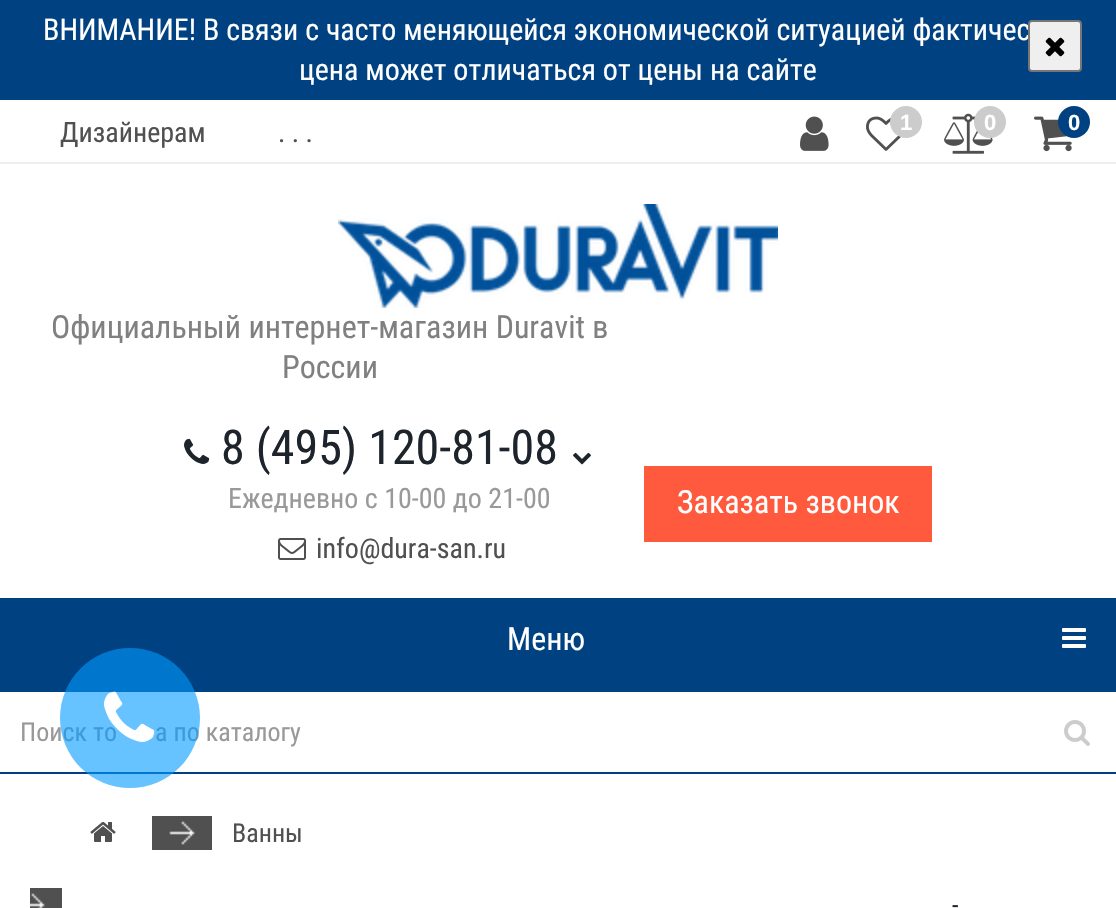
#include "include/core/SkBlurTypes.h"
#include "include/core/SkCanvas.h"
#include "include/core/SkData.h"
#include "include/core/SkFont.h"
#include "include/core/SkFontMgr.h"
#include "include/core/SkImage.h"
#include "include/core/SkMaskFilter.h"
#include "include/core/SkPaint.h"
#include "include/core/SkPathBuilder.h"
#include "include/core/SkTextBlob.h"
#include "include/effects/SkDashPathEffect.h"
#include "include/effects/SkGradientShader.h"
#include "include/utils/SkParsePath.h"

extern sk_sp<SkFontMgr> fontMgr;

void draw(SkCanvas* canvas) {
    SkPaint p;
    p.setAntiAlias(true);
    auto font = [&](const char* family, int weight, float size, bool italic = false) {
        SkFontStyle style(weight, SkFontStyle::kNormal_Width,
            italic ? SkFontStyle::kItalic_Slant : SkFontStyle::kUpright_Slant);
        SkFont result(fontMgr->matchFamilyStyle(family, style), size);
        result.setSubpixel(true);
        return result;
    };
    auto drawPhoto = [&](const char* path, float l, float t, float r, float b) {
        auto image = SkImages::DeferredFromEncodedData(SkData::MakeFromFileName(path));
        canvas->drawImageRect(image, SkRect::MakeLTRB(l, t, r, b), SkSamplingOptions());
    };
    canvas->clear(0xFFFFFFFF);
    p.setColor(0xFF004182);
    canvas->drawRect(SkRect::MakeLTRB(0, 0, 1116, 100), p);
    auto font1 = font("Roboto Condensed", 400, 30);
    p.setColor(0xFFFFFFFF);
    canvas->drawString("ВНИМАНИЕ! В связи с часто меняющейся экономической ситуацией фактичес", 43, 40, font1, p);
    canvas->drawString("цена может отличаться от цены на сайте", 299, 80, font1, p);
    p.setColor(0xFFEFEFEF);
    canvas->drawRoundRect(SkRect::MakeLTRB(1029, 21, 1081, 71), 3, 3, p);
    p.setStyle(SkPaint::kStroke_Style);
    p.setStrokeWidth(2);
    p.setColor(0xFF767676);
    canvas->drawRoundRect(SkRect::MakeLTRB(1029, 21, 1081, 71), 3, 3, p);
    drawPhoto("media/1.png", 1045, 37, 1065, 57);
    p.setStyle(SkPaint::kFill_Style);
    p.setColor(0xFFEEEEEE);
    canvas->drawRect(SkRect::MakeLTRB(0, 162, 1116, 164), p);
    auto font2 = font("Roboto Condensed", 400, 28);
    p.setColor(0xFF505050);
    canvas->drawString("Дизайнерам", 60, 142, font2, p);
    canvas->drawString(". . .", 278, 142, font2, p);
    drawPhoto("media/2.png", 800, 116, 829, 151);
    drawPhoto("media/3.png", 866, 116, 901, 151);
    p.setColor(0xFFCCCCCC);
    canvas->drawCircle(906, 122, 16, p);
    auto font3 = font("Liberation Sans", 700, 22);
    p.setColor(0xFFFFFFFF);
    canvas->drawString("1", 900, 130, font3, p);
    drawPhoto("media/4.png", 944, 113, 993, 154);
    p.setColor(0xFFCCCCCC);
    canvas->drawCircle(990, 122, 16, p);
    p.setColor(0xFFFFFFFF);
    canvas->drawString("0", 984, 130, font3, p);
    drawPhoto("media/5.png", 1034, 116, 1072, 152);
    p.setColor(0xFF004182);
    canvas->drawCircle(1074, 122, 16, p);
    p.setColor(0xFFFFFFFF);
    canvas->drawString("0", 1068, 130, font3, p);
    drawPhoto("media/6.png", 338, 204, 778, 308);
    auto font4 = font("Roboto Condensed", 400, 32);
    p.setColor(0xFF808080);
    canvas->drawString("Официальный интернет-магазин Duravit в", 51, 338, font4, p);
    canvas->drawString("России", 282, 378, font4, p);
    drawPhoto("media/7.png", 184, 438, 210, 464);
    auto font5 = font("Roboto Condensed", 400, 48);
    p.setColor(0xFF1D242B);
    canvas->drawString("8 (495) 120-81-08", 221, 464, font5, p);
    drawPhoto("media/8.png", 573, 452, 591, 465);
    p.setColor(0xFF999999);
    canvas->drawString("Ежедневно с 10-00 до 21-00", 228, 508, font2, p);
    drawPhoto("media/9.png", 278, 538, 306, 560);
    p.setColor(0xFF505050);
    canvas->drawString("info@dura-san.ru", 316, 558, font2, p);
    p.setColor(0xFFFF5A3D);
    canvas->drawRect(SkRect::MakeLTRB(644, 466, 932, 542), p);
    p.setColor(0xFFFFFFFF);
    canvas->drawString("Заказать звонок", 677, 513, font4, p);
    p.setColor(0xFF004182);
    canvas->drawRect(SkRect::MakeLTRB(0, 598, 1116, 774), p);
    p.setColor(0xFFFFFFFF);
    canvas->drawString("Меню", 507, 650, font4, p);
    drawPhoto("media/10.png", 1062, 628, 1086, 648);
    canvas->drawRect(SkRect::MakeLTRB(0, 692, 1116, 772), p);
    auto font6 = font("Roboto Condensed", 400, 26);
    p.setColor(0xFF999999);
    canvas->drawString("Поиск то", 20, 741, font6, p);
    canvas->drawString("а по каталогу", 155, 741, font6, p);
    drawPhoto("media/11.png", 1064, 720, 1090, 746);
    p.setColor(0x99009BFF);
    canvas->drawCircle(130, 718, 70, p);
    drawPhoto("media/12.png", 104, 691, 155, 742);
    drawPhoto("media/13.png", 90, 822, 116, 842);
    p.setColor(0xFF505050);
    canvas->drawRect(SkRect::MakeLTRB(152, 816, 212, 850), p);
    drawPhoto("media/14.png", 169, 821, 195, 845);
    canvas->drawString("Ванны", 232, 842, font6, p);
    canvas->drawRect(SkRect::MakeLTRB(30, 888, 62, 908), p);
    drawPhoto("media/15.png", 30, 893, 45, 908);
    p.setColor(0xFF1D242B);
    canvas->drawString("-", 952, 914, font6, p);
}
